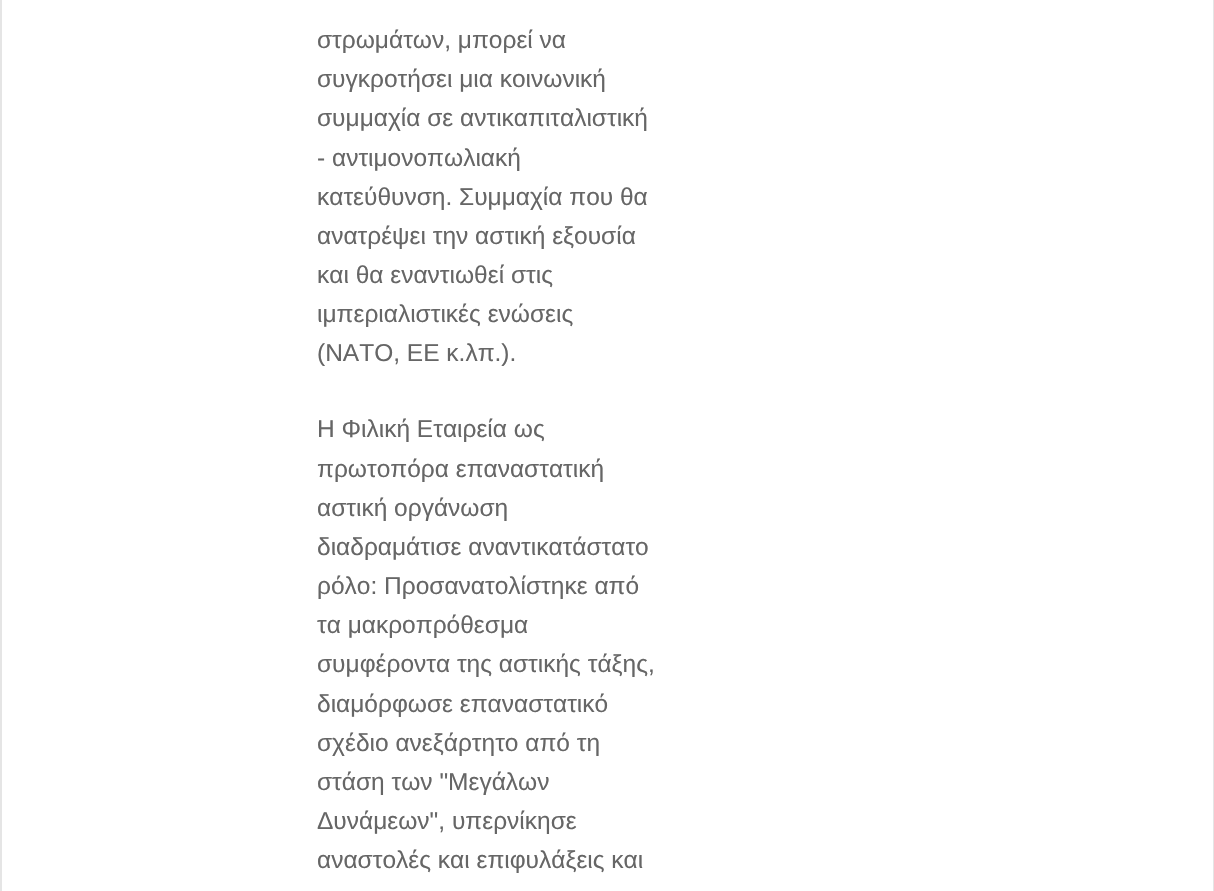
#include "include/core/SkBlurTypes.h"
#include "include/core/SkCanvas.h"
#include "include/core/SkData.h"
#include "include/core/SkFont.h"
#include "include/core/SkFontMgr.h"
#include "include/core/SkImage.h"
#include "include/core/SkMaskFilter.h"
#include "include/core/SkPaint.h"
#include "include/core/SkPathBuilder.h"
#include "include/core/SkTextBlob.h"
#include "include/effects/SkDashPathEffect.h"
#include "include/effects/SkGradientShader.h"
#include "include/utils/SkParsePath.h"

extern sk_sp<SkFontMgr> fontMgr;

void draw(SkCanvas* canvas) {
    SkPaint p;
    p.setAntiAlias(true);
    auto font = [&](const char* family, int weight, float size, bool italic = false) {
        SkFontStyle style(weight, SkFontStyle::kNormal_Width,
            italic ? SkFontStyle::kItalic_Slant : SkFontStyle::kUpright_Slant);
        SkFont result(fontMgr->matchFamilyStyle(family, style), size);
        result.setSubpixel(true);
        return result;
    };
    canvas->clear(0xFFFFFFFF);
    p.setColor(0xFFE5E5E5);
    canvas->drawRect(SkRect::MakeLTRB(1213, 0, 1214, 891), p);
    canvas->drawRect(SkRect::MakeLTRB(0, 0, 2, 891), p);
    auto font1 = font("Liberation Sans", 400, 24.5f);
    p.setColor(0xFF666666);
    {
        const struct { const char* s; float x, y; } items[] = {
            {"στρωμάτων, μπορεί να", 317, 48},
            {"συγκροτήσει μια κοινωνική", 317, 87},
            {"συμμαχία σε αντικαπιταλιστική", 317, 126},
            {"- αντιμονοπωλιακή", 317, 166},
            {"κατεύθυνση. Συμμαχία που θα", 317, 205},
            {"ανατρέψει την αστική εξουσία", 317, 244},
            {"και θα εναντιωθεί στις", 317, 283},
            {"ιμπεριαλιστικές ενώσεις", 317, 322},
            {"(ΝΑΤΟ, ΕΕ κ.λπ.).", 317, 361},
            {"Η Φιλική Εταιρεία ως", 317, 437},
            {"πρωτοπόρα επαναστατική", 317, 477},
            {"αστική οργάνωση", 317, 516},
            {"διαδραμάτισε αναντικατάστατο", 317, 555},
            {"ρόλο: Προσανατολίστηκε από", 317, 594},
            {"τα μακροπρόθεσμα", 317, 633},
            {"συμφέροντα της αστικής τάξης,", 317, 672},
            {"διαμόρφωσε επαναστατικό", 317, 712},
            {"σχέδιο ανεξάρτητο από τη", 317, 751},
            {"στάση των \"Μεγάλων", 317, 790},
            {"Δυνάμεων\", υπερνίκησε", 317, 829},
            {"αναστολές και επιφυλάξεις και", 317, 868},
        };
        for (auto [s, x, y] : items) {
            canvas->drawString(s, x, y, font1, p);
        }
    }
}
